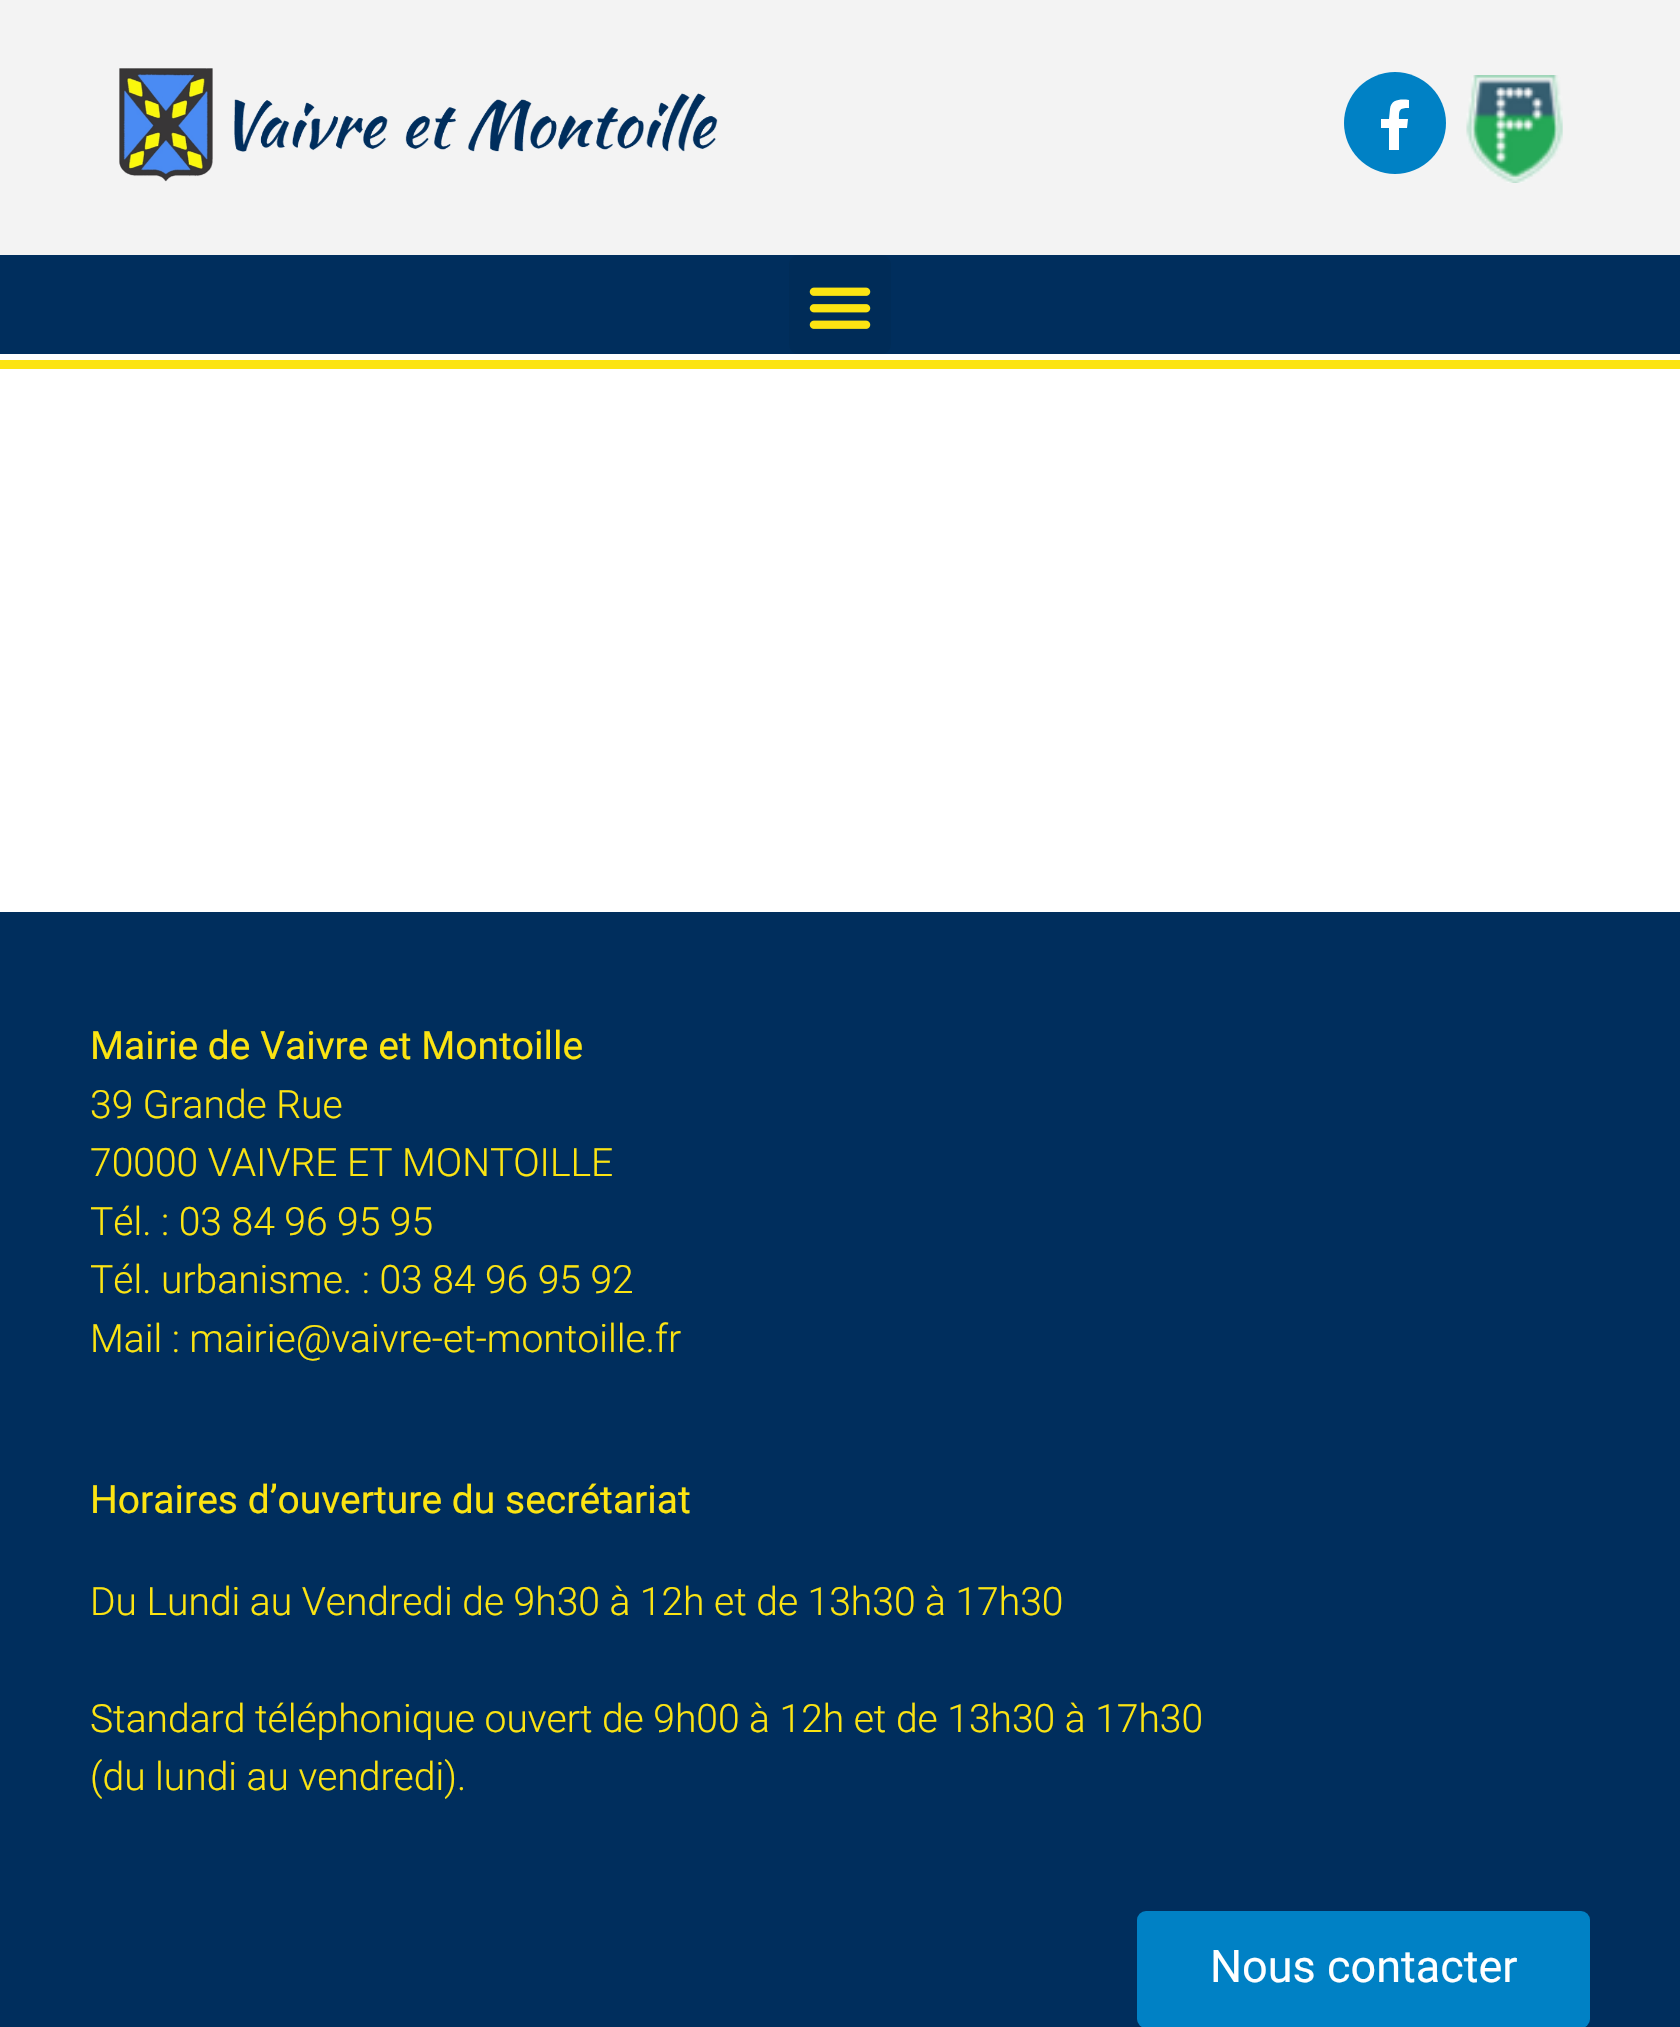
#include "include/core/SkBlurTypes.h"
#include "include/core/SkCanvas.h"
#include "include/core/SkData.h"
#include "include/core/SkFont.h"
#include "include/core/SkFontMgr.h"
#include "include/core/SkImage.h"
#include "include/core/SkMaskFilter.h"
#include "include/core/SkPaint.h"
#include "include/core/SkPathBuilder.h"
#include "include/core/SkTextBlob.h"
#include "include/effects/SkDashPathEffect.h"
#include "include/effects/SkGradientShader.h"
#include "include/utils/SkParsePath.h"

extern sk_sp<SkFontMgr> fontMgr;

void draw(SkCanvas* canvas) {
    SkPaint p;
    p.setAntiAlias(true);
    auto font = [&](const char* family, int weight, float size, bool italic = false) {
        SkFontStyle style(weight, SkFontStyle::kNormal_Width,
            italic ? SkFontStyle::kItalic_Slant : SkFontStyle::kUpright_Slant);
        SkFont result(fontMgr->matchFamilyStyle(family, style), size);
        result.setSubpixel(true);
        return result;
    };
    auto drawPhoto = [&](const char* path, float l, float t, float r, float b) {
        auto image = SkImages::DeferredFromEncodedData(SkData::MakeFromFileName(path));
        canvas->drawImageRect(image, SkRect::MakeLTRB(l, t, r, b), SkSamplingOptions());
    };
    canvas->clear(0xFFFFFFFF);
    p.setColor(0xFFF3F3F3);
    canvas->drawRect(SkRect::MakeLTRB(0, 0, 1680, 255), p);
    drawPhoto("media/1.png", 119, 68, 718, 182);
    p.setColor(0xFF0081C5);
    canvas->drawCircle(1395, 123, 51, p);
    p.setColor(0xFFFFFFFF);
    canvas->drawPath(SkPathBuilder().moveTo(1407, 128).lineTo(1399, 128).lineTo(1399, 150).lineTo(1389, 150).lineTo(1389, 128).lineTo(1381, 128).lineTo(1381, 119).lineTo(1389, 119).lineTo(1390, 109).cubicTo(1391, 99, 1401, 99, 1409, 100).lineTo(1409, 108).cubicTo(1399, 108, 1399, 110, 1399, 119).lineTo(1408, 119).close().detach(), p);
    drawPhoto("media/2.png", 1466, 75, 1563, 183);
    p.setColor(0xFF002E5D);
    canvas->drawRect(SkRect::MakeLTRB(0, 255, 1680, 354), p);
    p.setColor(0xFF002C58);
    canvas->drawRoundRect(SkRect::MakeLTRB(789, 255, 891, 354), 9, 9, p);
    drawPhoto("media/3.png", 809, 287, 871, 329);
    p.setColor(0xFFFCE412);
    canvas->drawRect(SkRect::MakeLTRB(0, 360, 1680, 369), p);
    p.setColor(0xFF002E5D);
    canvas->drawRect(SkRect::MakeLTRB(0, 912, 1680, 2027), p);
    auto font1 = font("Roboto", 400, 39);
    p.setColor(0xFFFCE412);
    canvas->drawString("Mairie de Vaivre et Montoille", 90, 1059, font1, p);
    auto font2 = font("Roboto", 300, 39);
    {
        const struct { const char* s; float x, y; } items[] = {
            {"39 Grande Rue", 90, 1118},
            {"70000 VAIVRE ET MONTOILLE", 90, 1176},
            {"Tél. : 03 84 96 95 95", 90, 1235},
            {"Tél. urbanisme. : 03 84 96 95 92", 90, 1293},
            {"Mail : mairie@vaivre-et-montoille.fr", 90, 1352},
        };
        for (auto [s, x, y] : items) {
            canvas->drawString(s, x, y, font2, p);
        }
    }
    canvas->drawString("Horaires d’ouverture du secrétariat", 90, 1513, font1, p);
    {
        const struct { const char* s; float x, y; } items[] = {
            {"Du Lundi au Vendredi de 9h30 à 12h et de 13h30 à 17h30", 90, 1615},
            {"Standard téléphonique ouvert de 9h00 à 12h et de 13h30 à 17h30", 90, 1732},
            {"(du lundi au vendredi).", 90, 1790},
        };
        for (auto [s, x, y] : items) {
            canvas->drawString(s, x, y, font2, p);
        }
    }
    p.setColor(0xFF0081C5);
    canvas->drawRoundRect(SkRect::MakeLTRB(1137, 1911, 1590, 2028), 9, 9, p);
    auto font3 = font("Roboto", 400, 45);
    p.setColor(0xFFFFFFFF);
    canvas->drawString("Nous contacter", 1210, 1982, font3, p);
}
